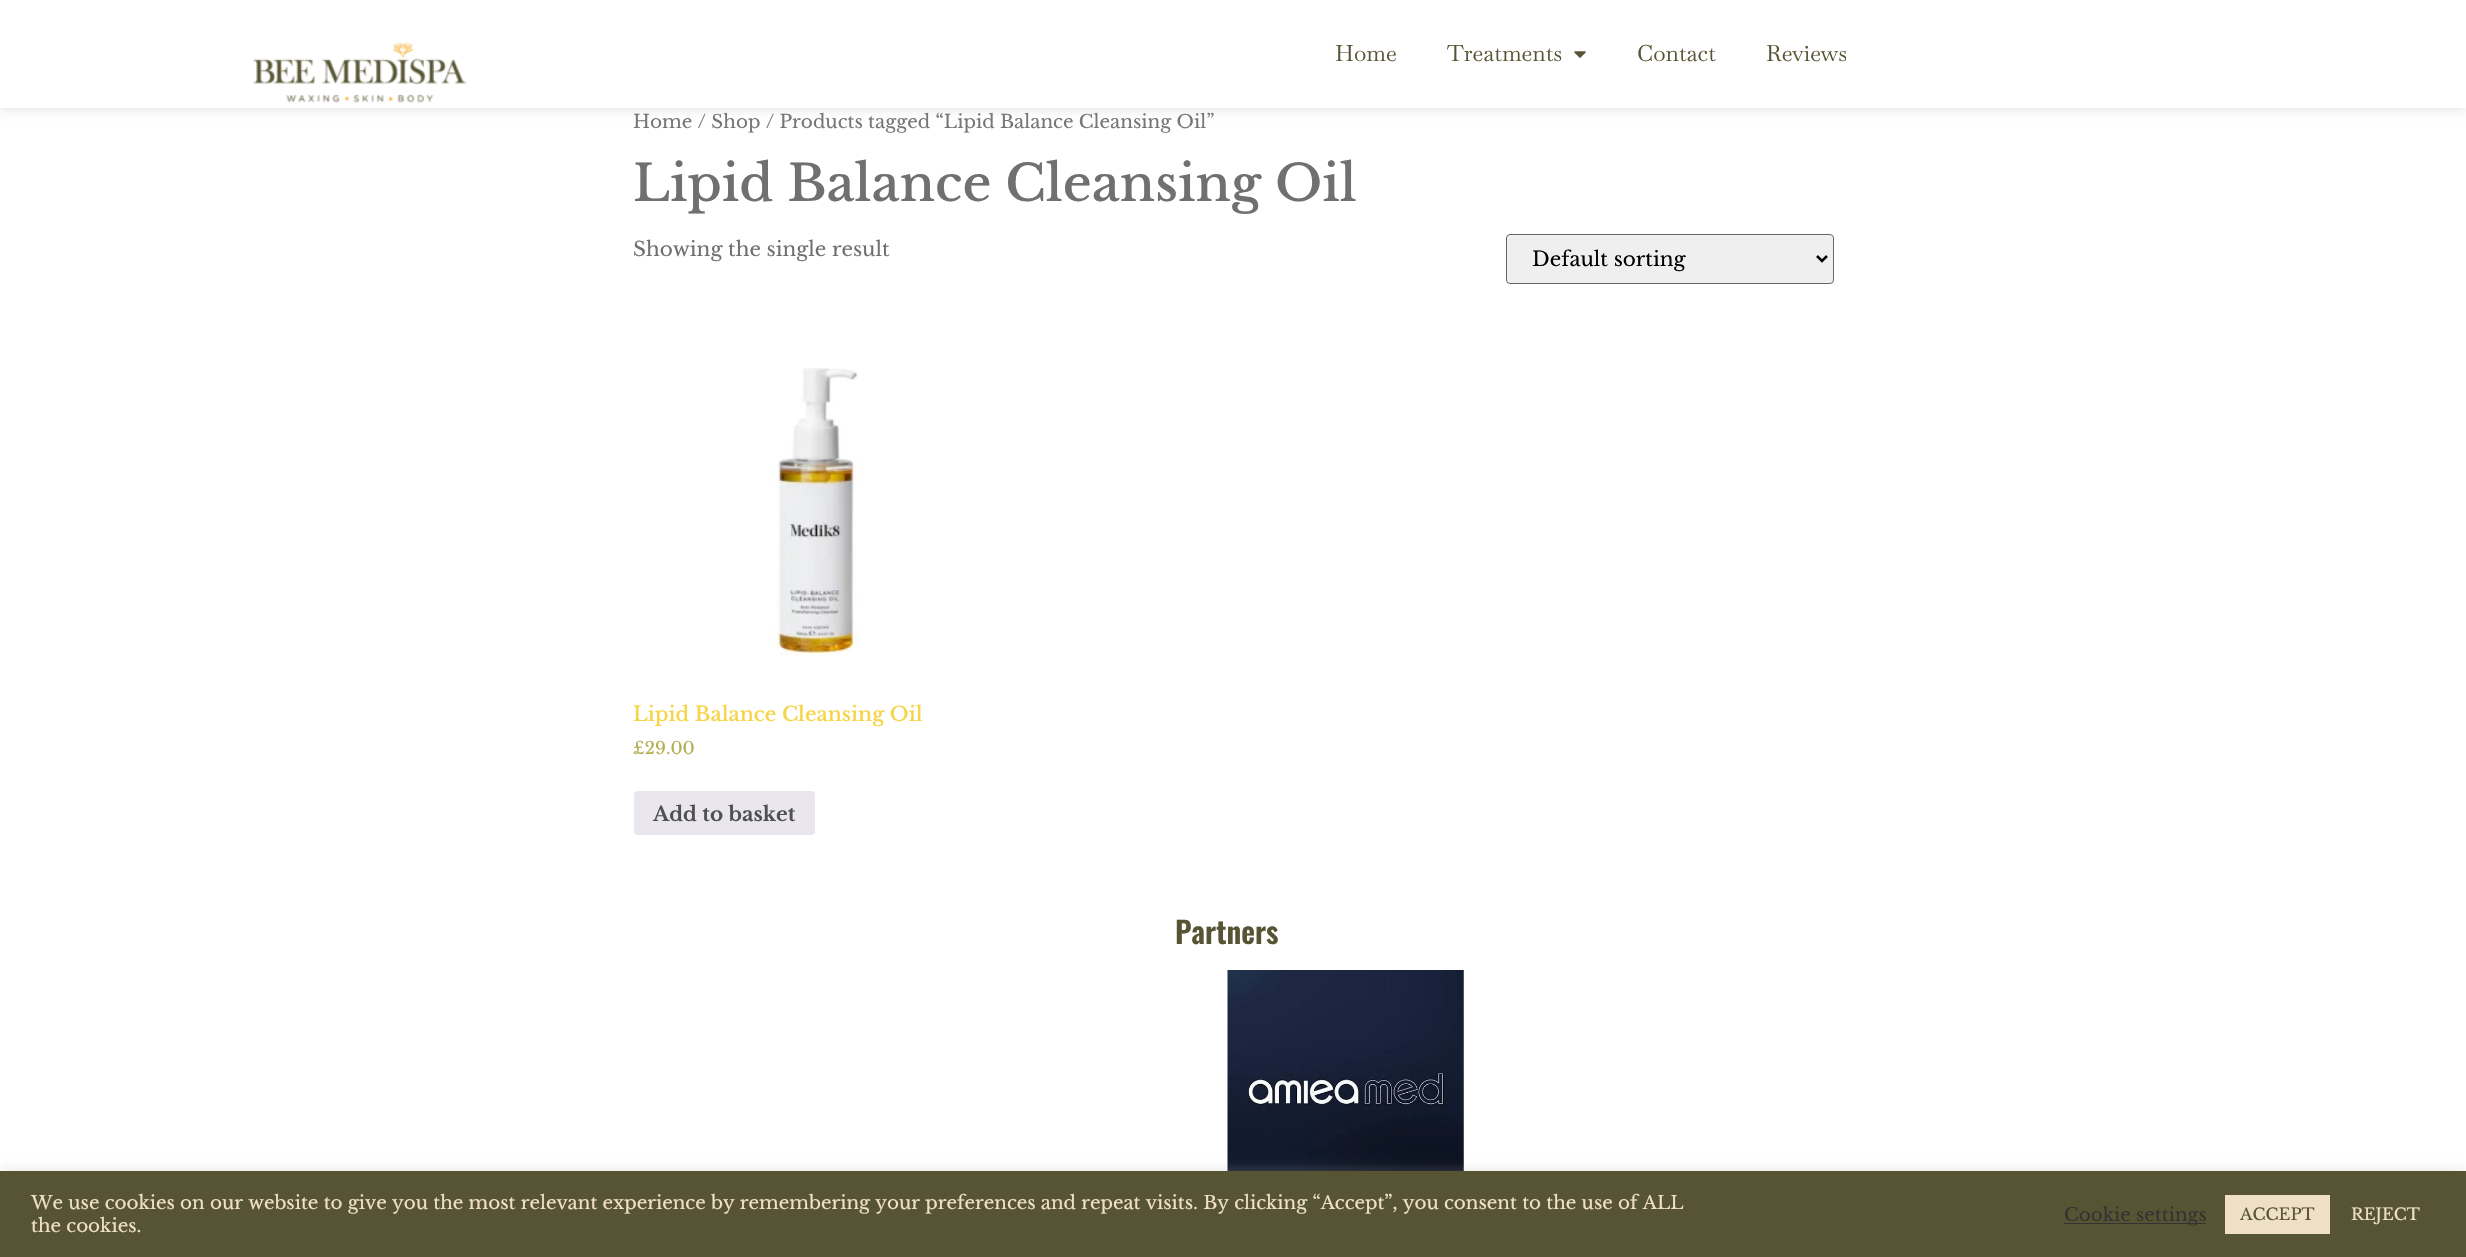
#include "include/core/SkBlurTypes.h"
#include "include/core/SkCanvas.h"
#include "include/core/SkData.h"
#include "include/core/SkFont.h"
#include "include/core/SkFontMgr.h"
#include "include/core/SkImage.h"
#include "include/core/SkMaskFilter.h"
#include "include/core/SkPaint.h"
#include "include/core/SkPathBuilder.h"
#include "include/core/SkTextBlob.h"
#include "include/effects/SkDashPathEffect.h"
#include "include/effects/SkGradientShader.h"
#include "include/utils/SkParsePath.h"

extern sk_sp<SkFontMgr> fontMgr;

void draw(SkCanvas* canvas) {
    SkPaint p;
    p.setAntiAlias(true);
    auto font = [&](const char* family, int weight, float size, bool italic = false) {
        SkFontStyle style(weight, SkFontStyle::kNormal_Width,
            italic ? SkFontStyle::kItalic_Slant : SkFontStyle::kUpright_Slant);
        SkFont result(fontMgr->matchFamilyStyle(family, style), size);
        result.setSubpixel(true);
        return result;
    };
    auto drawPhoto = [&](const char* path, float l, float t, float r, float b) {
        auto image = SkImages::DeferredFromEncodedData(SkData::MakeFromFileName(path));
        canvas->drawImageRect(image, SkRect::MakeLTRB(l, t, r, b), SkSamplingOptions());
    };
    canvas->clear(0xFFFFFFFF);
    p.setColor(0x21000000);
    p.setMaskFilter(SkMaskFilter::MakeBlur(kNormal_SkBlurStyle, 6));
    canvas->drawRect(SkRect::MakeLTRB(0, 0, 2466, 108), p);
    p.setMaskFilter(nullptr);
    p.setColor(0xFFFFFFFF);
    canvas->drawRect(SkRect::MakeLTRB(0, 0, 2466, 108), p);
    drawPhoto("media/1.png", 252, 42, 467, 103);
    auto font1 = font("Baskervville", 400, 22.5f);
    p.setColor(0xFF575434);
    canvas->drawString("Home", 1335, 61, font1, p);
    canvas->drawString("Treatments", 1447, 61, font1, p);
    drawPhoto("media/2.png", 1574, 51, 1586, 58);
    canvas->drawString("Contact", 1637, 61, font1, p);
    canvas->drawString("Reviews", 1766, 61, font1, p);
    auto font2 = font("Libre Baskerville", 400, 18.4f);
    p.setColor(0xFF767676);
    canvas->drawString("Home / Shop / Products tagged “Lipid Balance Cleansing Oil”", 633, 128, font2, p);
    auto font3 = font("Libre Baskerville", 500, 50);
    p.setColor(0xFF707070);
    canvas->drawString("Lipid Balance Cleansing Oil", 633, 201, font3, p);
    auto font4 = font("Libre Baskerville", 400, 20);
    canvas->drawString("Showing the single result", 633, 256, font4, p);
    p.setColor(0xFFEFEFEF);
    canvas->drawRoundRect(SkRect::MakeLTRB(1506.5f, 234.5f, 1833.5f, 283.5f), 3.5f, 3.5f, p);
    p.setStyle(SkPaint::kStroke_Style);
    p.setStrokeWidth(1);
    p.setColor(0xFF666666);
    canvas->drawRoundRect(SkRect::MakeLTRB(1506.5f, 234.5f, 1833.5f, 283.5f), 3.5f, 3.5f, p);
    p.setStrokeWidth(2.5f);
    p.setColor(0xFF000000);
    canvas->drawPath(SkPathBuilder().moveTo(1817, 256).lineTo(1822, 261).lineTo(1827, 256).detach(), p);
    p.setStyle(SkPaint::kFill_Style);
    canvas->drawString("Default sorting", 1532, 266, font4, p);
    drawPhoto("media/3.png", 771, 368, 860, 656);
    auto font5 = font("Libre Baskerville", 500, 20);
    p.setColor(0xFFF7D549);
    canvas->drawString("Lipid Balance Cleansing Oil", 633, 721, font5, p);
    auto font6 = font("Libre Baskerville", 400, 17);
    p.setColor(0xFFB3AF54);
    canvas->drawString("£29.00", 633, 754, font6, p);
    p.setColor(0xFFE9E6ED);
    canvas->drawRoundRect(SkRect::MakeLTRB(634, 791, 815, 835), 4, 4, p);
    auto font7 = font("Libre Baskerville", 700, 20);
    p.setColor(0xFF515151);
    canvas->drawString("Add to basket", 653, 821, font7, p);
    auto font8 = font("Oswald", 600, 30);
    p.setColor(0xFF575434);
    canvas->drawString("Partners", 1175, 944, font8, p);
    drawPhoto("media/4.png", 1227, 970, 1464, 1171);
    p.setColor(0x4DACABAB);
    p.setMaskFilter(SkMaskFilter::MakeBlur(kNormal_SkBlurStyle, 6));
    canvas->drawRect(SkRect::MakeLTRB(0, 1170, 2466, 1256), p);
    p.setMaskFilter(nullptr);
    p.setColor(0xFF575434);
    canvas->drawRect(SkRect::MakeLTRB(0, 1171, 2466, 1257), p);
    auto font9 = font("Libre Baskerville", 400, 18.33f);
    p.setColor(0xFFEFE0C3);
    canvas->drawString("We use cookies on our website to give you the most relevant experience by remembering your preferences and repeat visits. By clicking “Accept”, you consent to the use of ALL", 31, 1209, font9, p);
    canvas->drawString("the cookies.", 31, 1232, font9, p);
    p.setColor(0xFF333333);
    canvas->drawRect(SkRect::MakeLTRB(2064, 1223, 2206, 1224), p);
    canvas->drawString("Cookie settings", 2064, 1221, font9, p);
    p.setColor(0xFFEFE0C3);
    canvas->drawRect(SkRect::MakeLTRB(2225, 1195, 2330, 1234), p);
    auto font10 = font("Libre Baskerville", 400, 16.25f);
    p.setColor(0xFF575434);
    canvas->drawString("ACCEPT", 2240, 1220, font10, p);
    p.setColor(0xFFEFE0C3);
    canvas->drawString("REJECT", 2351, 1220, font10, p);
}
